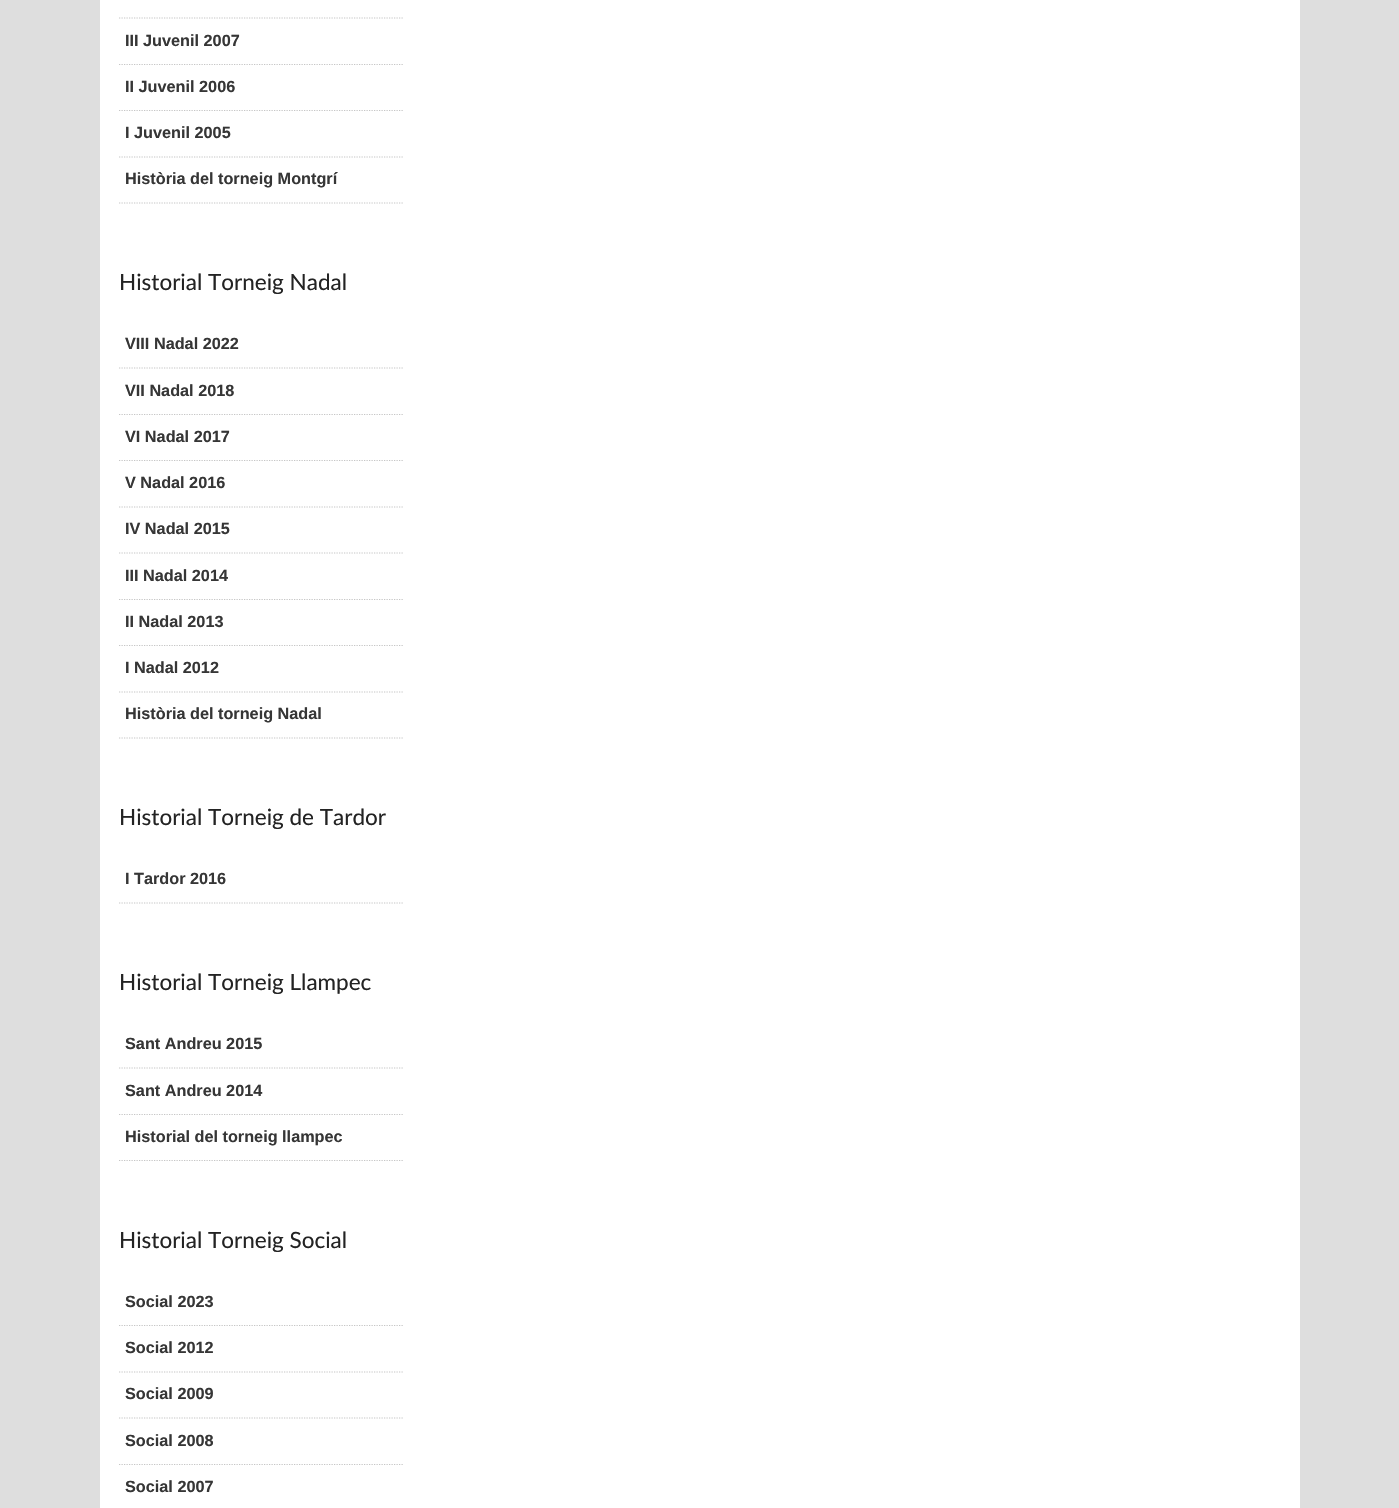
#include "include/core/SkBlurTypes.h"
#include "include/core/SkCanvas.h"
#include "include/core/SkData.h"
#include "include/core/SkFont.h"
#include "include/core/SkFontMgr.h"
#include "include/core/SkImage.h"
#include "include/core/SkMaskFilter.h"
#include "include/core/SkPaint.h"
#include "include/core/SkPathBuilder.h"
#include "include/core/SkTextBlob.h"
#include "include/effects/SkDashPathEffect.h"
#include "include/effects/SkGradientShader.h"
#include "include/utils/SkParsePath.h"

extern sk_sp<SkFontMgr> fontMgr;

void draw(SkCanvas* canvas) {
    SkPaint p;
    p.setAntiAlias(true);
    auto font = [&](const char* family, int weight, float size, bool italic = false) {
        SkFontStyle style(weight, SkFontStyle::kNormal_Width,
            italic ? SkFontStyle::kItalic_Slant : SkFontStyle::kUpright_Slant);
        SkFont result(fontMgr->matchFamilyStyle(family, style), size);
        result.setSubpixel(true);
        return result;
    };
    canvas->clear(0xFFDEDEDE);
    p.setColor(0xFFFFFFFF);
    canvas->drawRect(SkRect::MakeLTRB(100, 0, 1300, 1508), p);
    p.setStyle(SkPaint::kStroke_Style);
    p.setStrokeWidth(1.2f);
    p.setColor(0xFFC6C6C6);
    p.setPathEffect(SkDashPathEffect::Make({{1.25f, 1.25f}}, 0));
    canvas->drawPath(SkPathBuilder().moveTo(119, 18).lineTo(404, 18).detach(), p);
    p.setPathEffect(nullptr);
    p.setPathEffect(SkDashPathEffect::Make({{1.25f, 1.25f}}, 0));
    canvas->drawPath(SkPathBuilder().moveTo(119, 64.5f).lineTo(404, 64.5f).detach(), p);
    p.setPathEffect(nullptr);
    auto font1 = font("Liberation Sans", 700, 16.25f);
    p.setStyle(SkPaint::kFill_Style);
    p.setColor(0xFF363636);
    canvas->drawString("III Juvenil 2007", 125, 46, font1, p);
    p.setStyle(SkPaint::kStroke_Style);
    p.setColor(0xFFC6C6C6);
    p.setPathEffect(SkDashPathEffect::Make({{1.25f, 1.25f}}, 0));
    canvas->drawPath(SkPathBuilder().moveTo(119, 110.5f).lineTo(404, 110.5f).detach(), p);
    p.setPathEffect(nullptr);
    p.setStyle(SkPaint::kFill_Style);
    p.setColor(0xFF363636);
    canvas->drawString("II Juvenil 2006", 125, 92, font1, p);
    p.setStyle(SkPaint::kStroke_Style);
    p.setColor(0xFFC6C6C6);
    p.setPathEffect(SkDashPathEffect::Make({{1.25f, 1.25f}}, 0));
    canvas->drawPath(SkPathBuilder().moveTo(119, 157).lineTo(404, 157).detach(), p);
    p.setPathEffect(nullptr);
    p.setStyle(SkPaint::kFill_Style);
    p.setColor(0xFF363636);
    canvas->drawString("I Juvenil 2005", 125, 138, font1, p);
    p.setStyle(SkPaint::kStroke_Style);
    p.setColor(0xFFC6C6C6);
    p.setPathEffect(SkDashPathEffect::Make({{1.25f, 1.25f}}, 0));
    canvas->drawPath(SkPathBuilder().moveTo(119, 203).lineTo(404, 203).detach(), p);
    p.setPathEffect(nullptr);
    p.setStyle(SkPaint::kFill_Style);
    p.setColor(0xFF363636);
    canvas->drawString("Història del torneig Montgrí", 125, 184, font1, p);
    auto font2 = font("Lato", 400, 22.5f);
    p.setColor(0xFF232323);
    canvas->drawString("Historial Torneig Nadal", 119, 290, font2, p);
    p.setStyle(SkPaint::kStroke_Style);
    p.setColor(0xFFC6C6C6);
    p.setPathEffect(SkDashPathEffect::Make({{1.25f, 1.25f}}, 0));
    canvas->drawPath(SkPathBuilder().moveTo(119, 368).lineTo(404, 368).detach(), p);
    p.setPathEffect(nullptr);
    p.setStyle(SkPaint::kFill_Style);
    p.setColor(0xFF363636);
    canvas->drawString("VIII Nadal 2022", 125, 349, font1, p);
    p.setStyle(SkPaint::kStroke_Style);
    p.setColor(0xFFC6C6C6);
    p.setPathEffect(SkDashPathEffect::Make({{1.25f, 1.25f}}, 0));
    canvas->drawPath(SkPathBuilder().moveTo(119, 414.5f).lineTo(404, 414.5f).detach(), p);
    p.setPathEffect(nullptr);
    p.setStyle(SkPaint::kFill_Style);
    p.setColor(0xFF363636);
    canvas->drawString("VII Nadal 2018", 125, 396, font1, p);
    p.setStyle(SkPaint::kStroke_Style);
    p.setColor(0xFFC6C6C6);
    p.setPathEffect(SkDashPathEffect::Make({{1.25f, 1.25f}}, 0));
    canvas->drawPath(SkPathBuilder().moveTo(119, 460.5f).lineTo(404, 460.5f).detach(), p);
    p.setPathEffect(nullptr);
    p.setStyle(SkPaint::kFill_Style);
    p.setColor(0xFF363636);
    canvas->drawString("VI Nadal 2017", 125, 442, font1, p);
    p.setStyle(SkPaint::kStroke_Style);
    p.setColor(0xFFC6C6C6);
    p.setPathEffect(SkDashPathEffect::Make({{1.25f, 1.25f}}, 0));
    canvas->drawPath(SkPathBuilder().moveTo(119, 507).lineTo(404, 507).detach(), p);
    p.setPathEffect(nullptr);
    p.setStyle(SkPaint::kFill_Style);
    p.setColor(0xFF363636);
    canvas->drawString("V Nadal 2016", 125, 488, font1, p);
    p.setStyle(SkPaint::kStroke_Style);
    p.setColor(0xFFC6C6C6);
    p.setPathEffect(SkDashPathEffect::Make({{1.25f, 1.25f}}, 0));
    canvas->drawPath(SkPathBuilder().moveTo(119, 553).lineTo(404, 553).detach(), p);
    p.setPathEffect(nullptr);
    p.setStyle(SkPaint::kFill_Style);
    p.setColor(0xFF363636);
    canvas->drawString("IV Nadal 2015", 125, 534, font1, p);
    p.setStyle(SkPaint::kStroke_Style);
    p.setColor(0xFFC6C6C6);
    p.setPathEffect(SkDashPathEffect::Make({{1.25f, 1.25f}}, 0));
    canvas->drawPath(SkPathBuilder().moveTo(119, 599.5f).lineTo(404, 599.5f).detach(), p);
    p.setPathEffect(nullptr);
    p.setStyle(SkPaint::kFill_Style);
    p.setColor(0xFF363636);
    canvas->drawString("III Nadal 2014", 125, 581, font1, p);
    p.setStyle(SkPaint::kStroke_Style);
    p.setColor(0xFFC6C6C6);
    p.setPathEffect(SkDashPathEffect::Make({{1.25f, 1.25f}}, 0));
    canvas->drawPath(SkPathBuilder().moveTo(119, 645.5f).lineTo(404, 645.5f).detach(), p);
    p.setPathEffect(nullptr);
    p.setStyle(SkPaint::kFill_Style);
    p.setColor(0xFF363636);
    canvas->drawString("II Nadal 2013", 125, 627, font1, p);
    p.setStyle(SkPaint::kStroke_Style);
    p.setColor(0xFFC6C6C6);
    p.setPathEffect(SkDashPathEffect::Make({{1.25f, 1.25f}}, 0));
    canvas->drawPath(SkPathBuilder().moveTo(119, 692).lineTo(404, 692).detach(), p);
    p.setPathEffect(nullptr);
    p.setStyle(SkPaint::kFill_Style);
    p.setColor(0xFF363636);
    canvas->drawString("I Nadal 2012", 125, 673, font1, p);
    p.setStyle(SkPaint::kStroke_Style);
    p.setColor(0xFFC6C6C6);
    p.setPathEffect(SkDashPathEffect::Make({{1.25f, 1.25f}}, 0));
    canvas->drawPath(SkPathBuilder().moveTo(119, 738).lineTo(404, 738).detach(), p);
    p.setPathEffect(nullptr);
    p.setStyle(SkPaint::kFill_Style);
    p.setColor(0xFF363636);
    canvas->drawString("Història del torneig Nadal", 125, 719, font1, p);
    p.setColor(0xFF232323);
    canvas->drawString("Historial Torneig de Tardor", 119, 825, font2, p);
    p.setStyle(SkPaint::kStroke_Style);
    p.setColor(0xFFC6C6C6);
    p.setPathEffect(SkDashPathEffect::Make({{1.25f, 1.25f}}, 0));
    canvas->drawPath(SkPathBuilder().moveTo(119, 903).lineTo(404, 903).detach(), p);
    p.setPathEffect(nullptr);
    p.setStyle(SkPaint::kFill_Style);
    p.setColor(0xFF363636);
    canvas->drawString("I Tardor 2016", 125, 884, font1, p);
    p.setColor(0xFF232323);
    canvas->drawString("Historial Torneig Llampec", 119, 990, font2, p);
    p.setStyle(SkPaint::kStroke_Style);
    p.setColor(0xFFC6C6C6);
    p.setPathEffect(SkDashPathEffect::Make({{1.25f, 1.25f}}, 0));
    canvas->drawPath(SkPathBuilder().moveTo(119, 1068).lineTo(404, 1068).detach(), p);
    p.setPathEffect(nullptr);
    p.setStyle(SkPaint::kFill_Style);
    p.setColor(0xFF363636);
    canvas->drawString("Sant Andreu 2015", 125, 1049, font1, p);
    p.setStyle(SkPaint::kStroke_Style);
    p.setColor(0xFFC6C6C6);
    p.setPathEffect(SkDashPathEffect::Make({{1.25f, 1.25f}}, 0));
    canvas->drawPath(SkPathBuilder().moveTo(119, 1114.5f).lineTo(404, 1114.5f).detach(), p);
    p.setPathEffect(nullptr);
    p.setStyle(SkPaint::kFill_Style);
    p.setColor(0xFF363636);
    canvas->drawString("Sant Andreu 2014", 125, 1096, font1, p);
    p.setStyle(SkPaint::kStroke_Style);
    p.setColor(0xFFC6C6C6);
    p.setPathEffect(SkDashPathEffect::Make({{1.25f, 1.25f}}, 0));
    canvas->drawPath(SkPathBuilder().moveTo(119, 1160.5f).lineTo(404, 1160.5f).detach(), p);
    p.setPathEffect(nullptr);
    p.setStyle(SkPaint::kFill_Style);
    p.setColor(0xFF363636);
    canvas->drawString("Historial del torneig llampec", 125, 1142, font1, p);
    p.setColor(0xFF232323);
    canvas->drawString("Historial Torneig Social", 119, 1248, font2, p);
    p.setStyle(SkPaint::kStroke_Style);
    p.setColor(0xFFC6C6C6);
    p.setPathEffect(SkDashPathEffect::Make({{1.25f, 1.25f}}, 0));
    canvas->drawPath(SkPathBuilder().moveTo(119, 1325.5f).lineTo(404, 1325.5f).detach(), p);
    p.setPathEffect(nullptr);
    p.setStyle(SkPaint::kFill_Style);
    p.setColor(0xFF363636);
    canvas->drawString("Social 2023", 125, 1307, font1, p);
    p.setStyle(SkPaint::kStroke_Style);
    p.setColor(0xFFC6C6C6);
    p.setPathEffect(SkDashPathEffect::Make({{1.25f, 1.25f}}, 0));
    canvas->drawPath(SkPathBuilder().moveTo(119, 1372).lineTo(404, 1372).detach(), p);
    p.setPathEffect(nullptr);
    p.setStyle(SkPaint::kFill_Style);
    p.setColor(0xFF363636);
    canvas->drawString("Social 2012", 125, 1353, font1, p);
    p.setStyle(SkPaint::kStroke_Style);
    p.setColor(0xFFC6C6C6);
    p.setPathEffect(SkDashPathEffect::Make({{1.25f, 1.25f}}, 0));
    canvas->drawPath(SkPathBuilder().moveTo(119, 1418).lineTo(404, 1418).detach(), p);
    p.setPathEffect(nullptr);
    p.setStyle(SkPaint::kFill_Style);
    p.setColor(0xFF363636);
    canvas->drawString("Social 2009", 125, 1399, font1, p);
    p.setStyle(SkPaint::kStroke_Style);
    p.setColor(0xFFC6C6C6);
    p.setPathEffect(SkDashPathEffect::Make({{1.25f, 1.25f}}, 0));
    canvas->drawPath(SkPathBuilder().moveTo(119, 1464.5f).lineTo(404, 1464.5f).detach(), p);
    p.setPathEffect(nullptr);
    p.setStyle(SkPaint::kFill_Style);
    p.setColor(0xFF363636);
    canvas->drawString("Social 2008", 125, 1446, font1, p);
    canvas->drawString("Social 2007", 125, 1492, font1, p);
}
